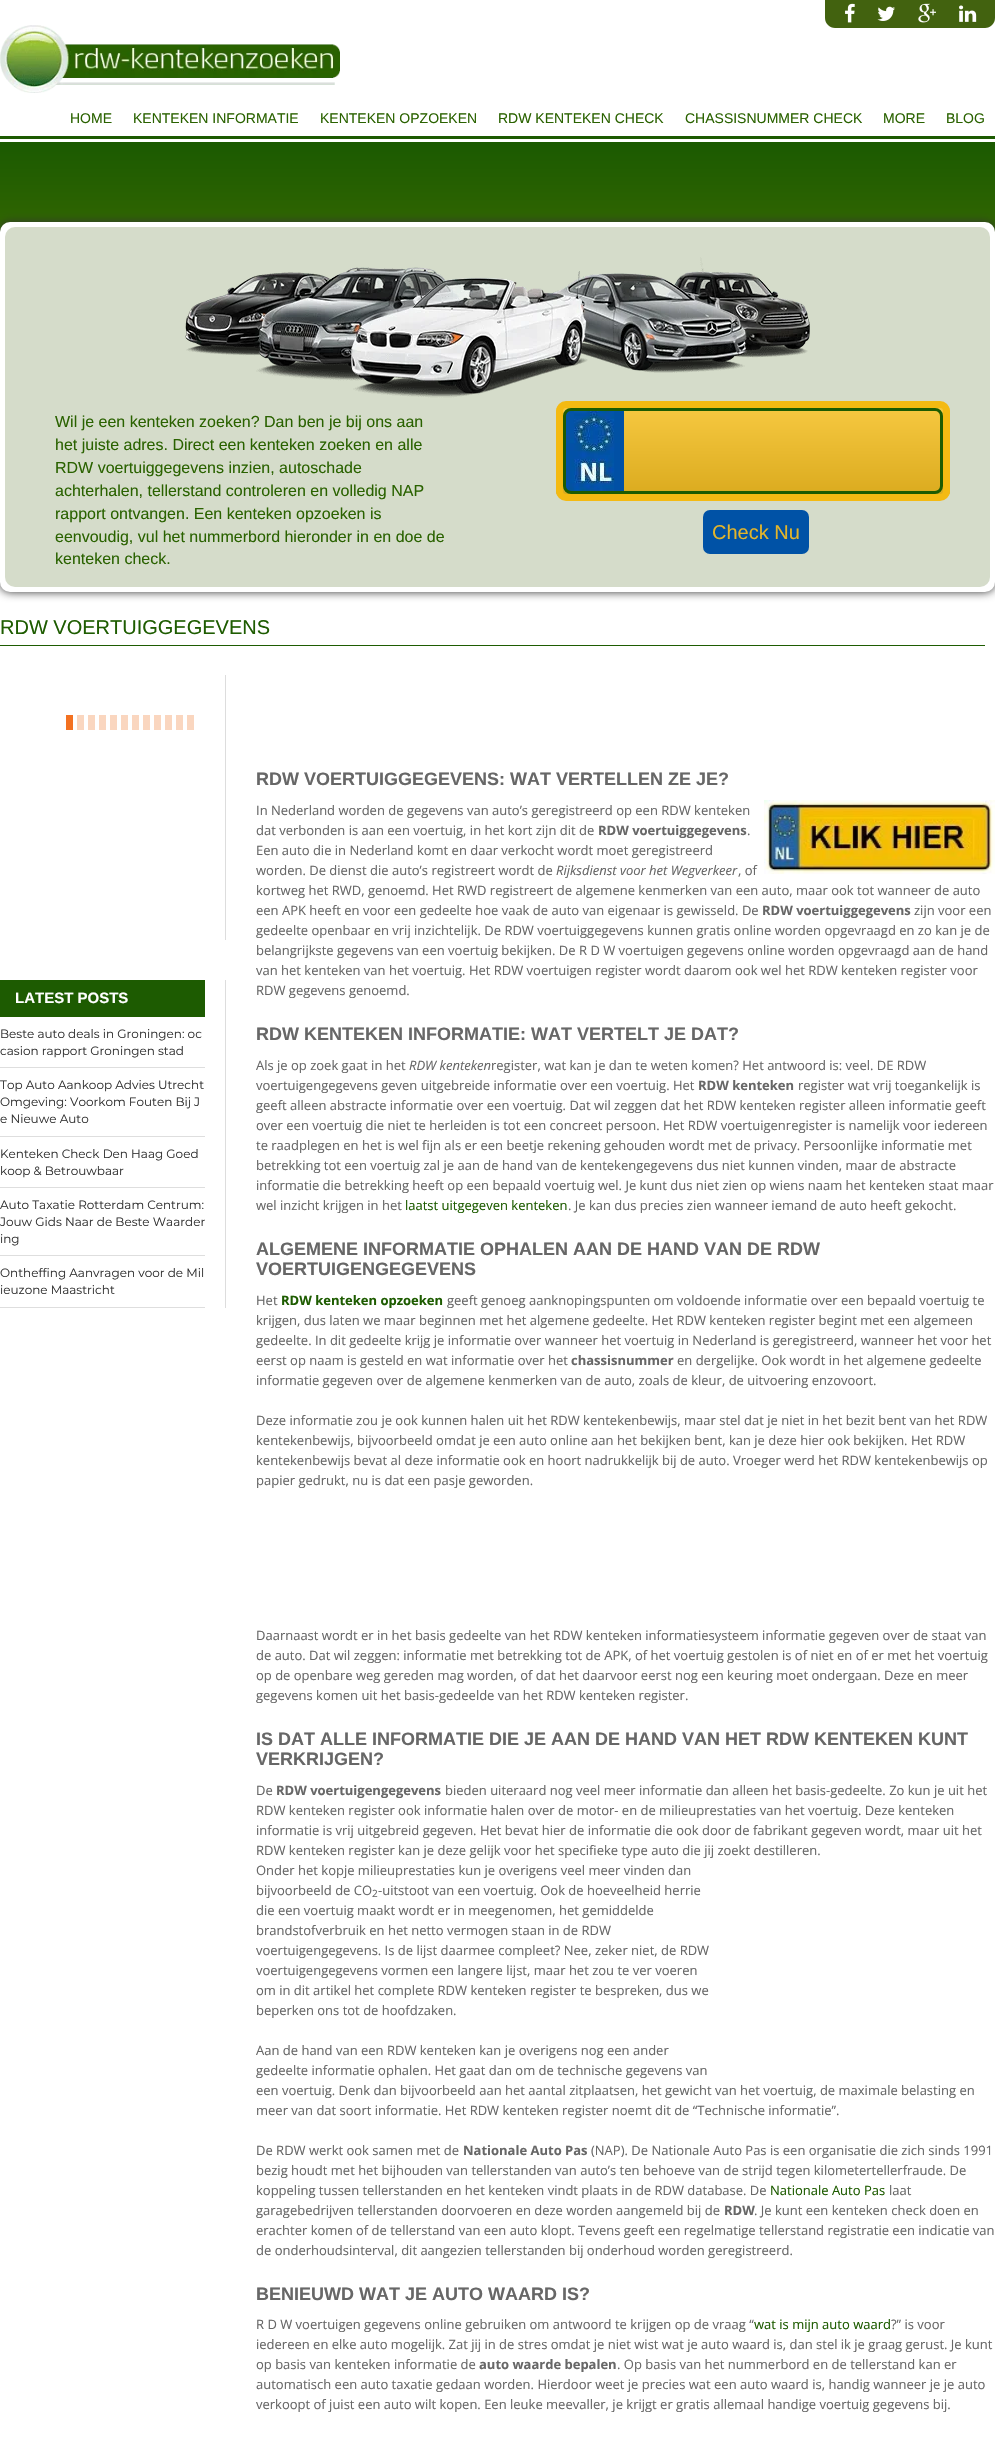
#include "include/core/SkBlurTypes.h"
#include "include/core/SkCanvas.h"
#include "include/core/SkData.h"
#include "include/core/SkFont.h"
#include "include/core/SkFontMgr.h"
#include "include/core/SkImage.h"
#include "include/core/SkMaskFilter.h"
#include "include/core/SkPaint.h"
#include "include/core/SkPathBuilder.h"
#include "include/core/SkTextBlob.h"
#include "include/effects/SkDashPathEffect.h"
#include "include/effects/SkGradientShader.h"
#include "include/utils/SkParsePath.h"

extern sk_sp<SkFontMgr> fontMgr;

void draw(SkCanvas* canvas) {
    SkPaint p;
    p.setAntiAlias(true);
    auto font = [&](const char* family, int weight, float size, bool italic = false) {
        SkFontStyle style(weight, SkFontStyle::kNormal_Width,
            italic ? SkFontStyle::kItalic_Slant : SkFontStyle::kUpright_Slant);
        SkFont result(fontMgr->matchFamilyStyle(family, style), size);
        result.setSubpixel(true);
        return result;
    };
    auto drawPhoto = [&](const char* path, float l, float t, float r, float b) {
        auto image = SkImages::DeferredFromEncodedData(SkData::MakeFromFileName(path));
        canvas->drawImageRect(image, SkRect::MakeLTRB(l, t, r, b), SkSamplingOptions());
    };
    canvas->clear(0xFFFFFFFF);
    p.setColor(0xFF1C5A01);
    canvas->drawRect(SkRect::MakeLTRB(0, 136, 995, 139), p);
    p.setColor(0xFF42620F);
    canvas->drawPath(SkPathBuilder().moveTo(825, 0).lineTo(995, 0).lineTo(995, 18).cubicTo(995, 23.5f, 990.5f, 28, 985, 28).lineTo(835, 28).cubicTo(829.5f, 28, 825, 23.5f, 825, 18).close().detach(), p);
    drawPhoto("media/1.png", 845, 3, 855, 23);
    drawPhoto("media/2.png", 877, 6, 895, 21);
    drawPhoto("media/3.png", 918, 3, 936, 23);
    drawPhoto("media/4.png", 959, 5, 977, 22);
    drawPhoto("media/5.png", 0, 25, 340, 93);
    auto font1 = font("Liberation Sans", 400, 14);
    p.setColor(0xFF2A6200);
    {
        const struct { const char* s; float x, y; } items[] = {
            {"HOME", 70, 123},
            {"KENTEKEN INFORMATIE", 133, 123},
            {"KENTEKEN OPZOEKEN", 320, 123},
            {"RDW KENTEKEN CHECK", 498, 123},
            {"CHASSISNUMMER CHECK", 685, 123},
            {"MORE", 883, 123},
            {"BLOG", 946, 123},
        };
        for (auto [s, x, y] : items) {
            canvas->drawString(s, x, y, font1, p);
        }
    }
    {
        const SkColor colors[] = {0xFF1B5A01, 0xFF3F6D00, 0xFF1B5A01};
        const float stops[] = {0, 0.49f, 1};
        const SkPoint ends[] = {{498, 142}, {498, 442}};
        p.setShader(SkGradientShader::MakeLinear(ends, colors, stops, 3, SkTileMode::kClamp));
        p.setAlpha(255);
    }
    canvas->drawRect(SkRect::MakeLTRB(0, 142, 995, 232), p);
    p.setShader(nullptr);
    p.setColor(0xFF333333);
    p.setMaskFilter(SkMaskFilter::MakeBlur(kNormal_SkBlurStyle, 5));
    canvas->drawRoundRect(SkRect::MakeLTRB(0, 222, 995, 592), 10, 10, p);
    p.setMaskFilter(nullptr);
    p.setColor(0xFFFFFFFF);
    canvas->drawRoundRect(SkRect::MakeLTRB(0, 222, 995, 592), 10, 10, p);
    p.setColor(0xFFD5DCCA);
    canvas->drawRoundRect(SkRect::MakeLTRB(5, 227, 990, 587), 10, 10, p);
    drawPhoto("media/6.png", 185, 257, 810, 398);
    auto font2 = font("Liberation Sans", 400, 16);
    p.setColor(0xFF2A6200);
    {
        const struct { const char* s; float x, y; } items[] = {
            {"Wil je een kenteken zoeken? Dan ben je bij ons aan", 55, 427},
            {"het juiste adres. Direct een kenteken zoeken en alle", 55, 450},
            {"RDW voertuiggegevens inzien, autoschade", 55, 473},
            {"achterhalen, tellerstand controleren en volledig NAP", 55, 496},
            {"rapport ontvangen. Een kenteken opzoeken is", 55, 519},
            {"eenvoudig, vul het nummerbord hieronder in en doe de", 55, 542},
            {"kenteken check.", 55, 564},
        };
        for (auto [s, x, y] : items) {
            canvas->drawString(s, x, y, font2, p);
        }
    }
    canvas->save();
    canvas->clipPath(SkPathBuilder().moveTo(566, 401).lineTo(940, 401).cubicTo(945.5f, 401, 950, 405.5f, 950, 411).lineTo(950, 491).cubicTo(950, 496.5f, 945.5f, 501, 940, 501).lineTo(566, 501).cubicTo(560.5f, 501, 556, 496.5f, 556, 491).lineTo(556, 411).cubicTo(556, 405.5f, 560.5f, 401, 566, 401).close().detach(), true);
    {
        const SkColor colors[] = {0xFFF6C840, 0xFFDBAB1F};
        const float stops[] = {0, 1};
        const SkPoint ends[] = {{753, 408}, {753, 494}};
        p.setShader(SkGradientShader::MakeLinear(ends, colors, stops, 2, SkTileMode::kClamp));
        p.setAlpha(255);
    }
    canvas->drawRect(SkRect::MakeLTRB(556, 408, 950, 494), p);
    canvas->restore();
    p.setStyle(SkPaint::kStroke_Style);
    p.setStrokeWidth(7);
    p.setShader(nullptr);
    p.setColor(0xFFF4BA12);
    canvas->drawRoundRect(SkRect::MakeLTRB(559.5f, 404.5f, 946.5f, 497.5f), 6.5f, 6.5f, p);
    drawPhoto("media/7.png", 566, 411, 624, 491);
    p.setStrokeWidth(3);
    p.setColor(0xFF1D5B01);
    canvas->drawRoundRect(SkRect::MakeLTRB(564.5f, 409.5f, 941.5f, 492.5f), 6.5f, 6.5f, p);
    p.setStyle(SkPaint::kFill_Style);
    p.setColor(0xFF0052A6);
    canvas->drawRoundRect(SkRect::MakeLTRB(703, 510, 809, 554), 7, 7, p);
    auto font3 = font("Liberation Sans", 400, 20);
    p.setColor(0xFFE4B52A);
    canvas->drawString("Check Nu", 712, 539, font3, p);
    p.setColor(0xFF1E5C01);
    canvas->drawRect(SkRect::MakeLTRB(0, 645, 985, 646), p);
    canvas->drawString("RDW VOERTUIGGEGEVENS", 0, 634, font3, p);
    p.setColor(0xFFDDDDDD);
    canvas->drawRect(SkRect::MakeLTRB(225, 675, 226, 940), p);
    drawPhoto("media/8.png", 66, 715, 194, 730);
    canvas->drawRect(SkRect::MakeLTRB(225, 980, 226, 1308), p);
    p.setColor(0xFF1D5B01);
    canvas->drawRect(SkRect::MakeLTRB(0, 980, 205, 1017), p);
    auto font4 = font("Liberation Sans", 700, 15);
    p.setColor(0xFFFFFFFF);
    canvas->drawString("LATEST POSTS", 15, 1003, font4, p);
    p.setColor(0xFFDEDEDE);
    canvas->drawRect(SkRect::MakeLTRB(0, 1067, 205, 1068), p);
    auto font5 = font("Montserrat", 400, 12);
    p.setColor(0xFF333333);
    canvas->drawString("Beste auto deals in Groningen: oc", 0, 1038, font5, p);
    canvas->drawString("casion rapport Groningen stad", 0, 1055, font5, p);
    p.setColor(0xFFDEDEDE);
    canvas->drawRect(SkRect::MakeLTRB(0, 1136, 205, 1137), p);
    p.setColor(0xFF333333);
    {
        const struct { const char* s; float x, y; } items[] = {
            {"Top Auto Aankoop Advies Utrecht", 0, 1089},
            {"Omgeving: Voorkom Fouten Bij J", 0, 1106},
            {"e Nieuwe Auto", 0, 1123},
        };
        for (auto [s, x, y] : items) {
            canvas->drawString(s, x, y, font5, p);
        }
    }
    p.setColor(0xFFDEDEDE);
    canvas->drawRect(SkRect::MakeLTRB(0, 1187, 205, 1188), p);
    p.setColor(0xFF333333);
    canvas->drawString("Kenteken Check Den Haag Goed", 0, 1158, font5, p);
    canvas->drawString("koop & Betrouwbaar", 0, 1175, font5, p);
    p.setColor(0xFFDEDEDE);
    canvas->drawRect(SkRect::MakeLTRB(0, 1255, 205, 1256), p);
    p.setColor(0xFF333333);
    {
        const struct { const char* s; float x, y; } items[] = {
            {"Auto Taxatie Rotterdam Centrum:", 0, 1209},
            {"Jouw Gids Naar de Beste Waarder", 0, 1226},
            {"ing", 0, 1243},
        };
        for (auto [s, x, y] : items) {
            canvas->drawString(s, x, y, font5, p);
        }
    }
    p.setColor(0xFFDEDEDE);
    canvas->drawRect(SkRect::MakeLTRB(0, 1307, 205, 1308), p);
    p.setColor(0xFF333333);
    canvas->drawString("Ontheffing Aanvragen voor de Mil", 0, 1277, font5, p);
    canvas->drawString("ieuzone Maastricht", 0, 1294, font5, p);
    auto font6 = font("Liberation Sans", 700, 18);
    p.setColor(0xFF676767);
    canvas->drawString("RDW VOERTUIGGEGEVENS: WAT VERTELLEN ZE JE?", 256, 785, font6, p);
    auto font7 = font("Open Sans", 400, 13);
    canvas->drawString("In Nederland worden de gegevens van auto’s geregistreerd op een RDW kenteken", 256, 815, font7, p);
    drawPhoto("media/9.png", 764, 800, 995, 874);
    canvas->drawString("dat verbonden is aan een voertuig, in het kort zijn dit de", 256, 835, font7, p);
    auto font8 = font("Open Sans", 700, 13);
    canvas->drawString("RDW voertuiggegevens", 598, 835, font8, p);
    {
        const struct { const char* s; float x, y; } items[] = {
            {".", 747, 835},
            {"Een auto die in Nederland komt en daar verkocht wordt moet geregistreerd", 256, 855},
            {"worden. De dienst die auto’s registreert wordt de", 256, 875},
        };
        for (auto [s, x, y] : items) {
            canvas->drawString(s, x, y, font7, p);
        }
    }
    auto font9 = font("Open Sans", 400, 13, true);
    canvas->drawString("Rijksdienst voor het Wegverkeer", 556, 875, font9, p);
    {
        const struct { const char* s; float x, y; } items[] = {
            {", of", 738, 875},
            {"kortweg het RWD, genoemd. Het RWD registreert de algemene kenmerken van een auto, maar ook tot wanneer de auto", 256, 895},
            {"een APK heeft en voor een gedeelte hoe vaak de auto van eigenaar is gewisseld. De", 256, 915},
        };
        for (auto [s, x, y] : items) {
            canvas->drawString(s, x, y, font7, p);
        }
    }
    canvas->drawString("RDW voertuiggegevens", 762, 915, font8, p);
    {
        const struct { const char* s; float x, y; } items[] = {
            {"zijn voor een", 914, 915},
            {"gedeelte openbaar en vrij inzichtelijk. De RDW voertuiggegevens kunnen gratis online worden opgevraagd en zo kan je de", 256, 935},
            {"belangrijkste gegevens van een voertuig bekijken. De R D W voertuigen gegevens online worden opgevraagd aan de hand", 256, 955},
            {"van het kenteken van het voertuig. Het RDW voertuigen register wordt daarom ook wel het RDW kenteken register voor", 256, 975},
            {"RDW gegevens genoemd.", 256, 995},
        };
        for (auto [s, x, y] : items) {
            canvas->drawString(s, x, y, font7, p);
        }
    }
    canvas->drawString("RDW KENTEKEN INFORMATIE: WAT VERTELT JE DAT?", 256, 1040, font6, p);
    canvas->drawString("Als je op zoek gaat in het", 256, 1070, font7, p);
    canvas->drawString("RDW kenteken", 409, 1070, font9, p);
    canvas->drawString("register, wat kan je dan te weten komen? Het antwoord is: veel. DE RDW", 491, 1070, font7, p);
    canvas->drawString("voertuigengegevens geven uitgebreide informatie over een voertuig. Het", 256, 1090, font7, p);
    canvas->drawString("RDW kenteken", 698, 1090, font8, p);
    {
        const struct { const char* s; float x, y; } items[] = {
            {"register wat vrij toegankelijk is", 798, 1090},
            {"geeft alleen abstracte informatie over een voertuig. Dat wil zeggen dat het RDW kenteken register alleen informatie geeft", 256, 1110},
            {"over een voertuig die niet te herleiden is tot een concreet persoon. Het RDW voertuigenregister is namelijk voor iedereen", 256, 1130},
            {"te raadplegen en het is wel fijn als er een beetje rekening gehouden wordt met de privacy. Persoonlijke informatie met", 256, 1150},
            {"betrekking tot een voertuig zal je aan de hand van de kentekengegevens dus niet kunnen vinden, maar de abstracte", 256, 1170},
            {"informatie die betrekking heeft op een bepaald voertuig wel. Je kunt dus niet zien op wiens naam het kenteken staat maar", 256, 1190},
            {"wel inzicht krijgen in het", 256, 1210},
        };
        for (auto [s, x, y] : items) {
            canvas->drawString(s, x, y, font7, p);
        }
    }
    p.setColor(0xFF1E5C01);
    canvas->drawString("laatst uitgegeven kenteken", 405, 1210, font7, p);
    p.setColor(0xFF676767);
    canvas->drawString(". Je kan dus precies zien wanneer iemand de auto heeft gekocht.", 568, 1210, font7, p);
    canvas->drawString("ALGEMENE INFORMATIE OPHALEN AAN DE HAND VAN DE RDW", 256, 1255, font6, p);
    canvas->drawString("VOERTUIGENGEGEVENS", 256, 1275, font6, p);
    canvas->drawString("Het", 256, 1305, font7, p);
    p.setColor(0xFF1E5C01);
    canvas->drawString("RDW kenteken opzoeken", 281, 1305, font8, p);
    p.setColor(0xFF676767);
    {
        const struct { const char* s; float x, y; } items[] = {
            {"geeft genoeg aanknopingspunten om voldoende informatie over een bepaald voertuig te", 447, 1305},
            {"krijgen, dus laten we maar beginnen met het algemene gedeelte. Het RDW kenteken register begint met een algemeen", 256, 1325},
            {"gedeelte. In dit gedeelte krijg je informatie over wanneer het voertuig in Nederland is geregistreerd, wanneer het voor het", 256, 1345},
            {"eerst op naam is gesteld en wat informatie over het", 256, 1365},
        };
        for (auto [s, x, y] : items) {
            canvas->drawString(s, x, y, font7, p);
        }
    }
    canvas->drawString("chassisnummer", 571, 1365, font8, p);
    {
        const struct { const char* s; float x, y; } items[] = {
            {"en dergelijke. Ook wordt in het algemene gedeelte", 677, 1365},
            {"informatie gegeven over de algemene kenmerken van de auto, zoals de kleur, de uitvoering enzovoort.", 256, 1385},
            {"Deze informatie zou je ook kunnen halen uit het RDW kentekenbewijs, maar stel dat je niet in het bezit bent van het RDW", 256, 1425},
            {"kentekenbewijs, bijvoorbeeld omdat je een auto online aan het bekijken bent, kan je deze hier ook bekijken. Het RDW", 256, 1445},
            {"kentekenbewijs bevat al deze informatie ook en hoort nadrukkelijk bij de auto. Vroeger werd het RDW kentekenbewijs op", 256, 1465},
            {"papier gedrukt, nu is dat een pasje geworden.", 256, 1485},
            {"Daarnaast wordt er in het basis gedeelte van het RDW kenteken informatiesysteem informatie gegeven over de staat van", 256, 1640},
            {"de auto. Dat wil zeggen: informatie met betrekking tot de APK, of het voertuig gestolen is of niet en of er met het voertuig", 256, 1660},
            {"op de openbare weg gereden mag worden, of dat het daarvoor eerst nog een keuring moet ondergaan. Deze en meer", 256, 1680},
            {"gegevens komen uit het basis-gedeelde van het RDW kenteken register.", 256, 1700},
        };
        for (auto [s, x, y] : items) {
            canvas->drawString(s, x, y, font7, p);
        }
    }
    canvas->drawString("IS DAT ALLE INFORMATIE DIE JE AAN DE HAND VAN HET RDW KENTEKEN KUNT", 256, 1745, font6, p);
    canvas->drawString("VERKRIJGEN?", 256, 1765, font6, p);
    canvas->drawString("De", 256, 1795, font7, p);
    canvas->drawString("RDW voertuigengegevens", 276, 1795, font8, p);
    {
        const struct { const char* s; float x, y; } items[] = {
            {"bieden uiteraard nog veel meer informatie dan alleen het basis-gedeelte. Zo kun je uit het", 445, 1795},
            {"RDW kenteken register ook informatie halen over de motor- en de milieuprestaties van het voertuig. Deze kenteken", 256, 1815},
            {"informatie is vrij uitgebreid gegeven. Het bevat hier de informatie die ook door de fabrikant gegeven wordt, maar uit het", 256, 1835},
            {"RDW kenteken register kan je deze gelijk voor het specifieke type auto die jij zoekt destilleren.", 256, 1855},
            {"Onder het kopje milieuprestaties kun je overigens veel meer vinden dan", 256, 1875},
            {"bijvoorbeeld de CO", 256, 1895},
        };
        for (auto [s, x, y] : items) {
            canvas->drawString(s, x, y, font7, p);
        }
    }
    auto font10 = font("Open Sans", 400, 10);
    canvas->drawString("2", 372, 1897, font10, p);
    {
        const struct { const char* s; float x, y; } items[] = {
            {"-uitstoot van een voertuig. Ook de hoeveelheid herrie", 378, 1895},
            {"die een voertuig maakt wordt er in meegenomen, het gemiddelde", 256, 1915},
            {"brandstofverbruik en het netto vermogen staan in de RDW", 256, 1935},
            {"voertuigengegevens. Is de lijst daarmee compleet? Nee, zeker niet, de RDW", 256, 1955},
            {"voertuigengegevens vormen een langere lijst, maar het zou te ver voeren", 256, 1975},
            {"om in dit artikel het complete RDW kenteken register te bespreken, dus we", 256, 1995},
            {"beperken ons tot de hoofdzaken.", 256, 2015},
            {"Aan de hand van een RDW kenteken kan je overigens nog een ander", 256, 2055},
            {"gedeelte informatie ophalen. Het gaat dan om de technische gegevens van", 256, 2075},
            {"een voertuig. Denk dan bijvoorbeeld aan het aantal zitplaatsen, het gewicht van het voertuig, de maximale belasting en", 256, 2095},
            {"meer van dat soort informatie. Het RDW kenteken register noemt dit de “Technische informatie”.", 256, 2115},
            {"De RDW werkt ook samen met de", 256, 2155},
        };
        for (auto [s, x, y] : items) {
            canvas->drawString(s, x, y, font7, p);
        }
    }
    canvas->drawString("Nationale Auto Pas", 463, 2155, font8, p);
    {
        const struct { const char* s; float x, y; } items[] = {
            {"(NAP). De Nationale Auto Pas is een organisatie die zich sinds 1991", 591, 2155},
            {"bezig houdt met het bijhouden van tellerstanden van auto’s ten behoeve van de strijd tegen kilometertellerfraude. De", 256, 2175},
            {"koppeling tussen tellerstanden en het kenteken vindt plaats in de RDW database. De", 256, 2195},
        };
        for (auto [s, x, y] : items) {
            canvas->drawString(s, x, y, font7, p);
        }
    }
    p.setColor(0xFF1E5C01);
    canvas->drawString("Nationale Auto Pas", 770, 2195, font7, p);
    p.setColor(0xFF676767);
    canvas->drawString("laat", 889, 2195, font7, p);
    canvas->drawString("garagebedrijven tellerstanden doorvoeren en deze worden aangemeld bij de", 256, 2215, font7, p);
    canvas->drawString("RDW", 724, 2215, font8, p);
    {
        const struct { const char* s; float x, y; } items[] = {
            {". Je kunt een kenteken check doen en", 754, 2215},
            {"erachter komen of de tellerstand van een auto klopt. Tevens geeft een regelmatige tellerstand registratie een indicatie van", 256, 2235},
            {"de onderhoudsinterval, dit aangezien tellerstanden bij onderhoud worden geregistreerd.", 256, 2255},
        };
        for (auto [s, x, y] : items) {
            canvas->drawString(s, x, y, font7, p);
        }
    }
    canvas->drawString("BENIEUWD WAT JE AUTO WAARD IS?", 256, 2300, font6, p);
    canvas->drawString("R D W voertuigen gegevens online gebruiken om antwoord te krijgen op de vraag “", 256, 2329, font7, p);
    p.setColor(0xFF1E5C01);
    canvas->drawString("wat is mijn auto waard", 754, 2329, font7, p);
    p.setColor(0xFF676767);
    {
        const struct { const char* s; float x, y; } items[] = {
            {"?” is voor", 891, 2329},
            {"iedereen en elke auto mogelijk. Zat jij in de stres omdat je niet wist wat je auto waard is, dan stel ik je graag gerust. Je kunt", 256, 2349},
            {"op basis van kenteken informatie de", 256, 2369},
        };
        for (auto [s, x, y] : items) {
            canvas->drawString(s, x, y, font7, p);
        }
    }
    canvas->drawString("auto waarde bepalen", 479, 2369, font8, p);
    {
        const struct { const char* s; float x, y; } items[] = {
            {". Op basis van het nummerbord en de tellerstand kan er", 617, 2369},
            {"automatisch een auto taxatie gedaan worden. Hierdoor weet je precies wat een auto waard is, handig wanneer je je auto", 256, 2389},
            {"verkoopt of juist een auto wilt kopen. Een leuke meevaller, je krijgt er gratis allemaal handige voertuig gegevens bij.", 256, 2409},
        };
        for (auto [s, x, y] : items) {
            canvas->drawString(s, x, y, font7, p);
        }
    }
}
